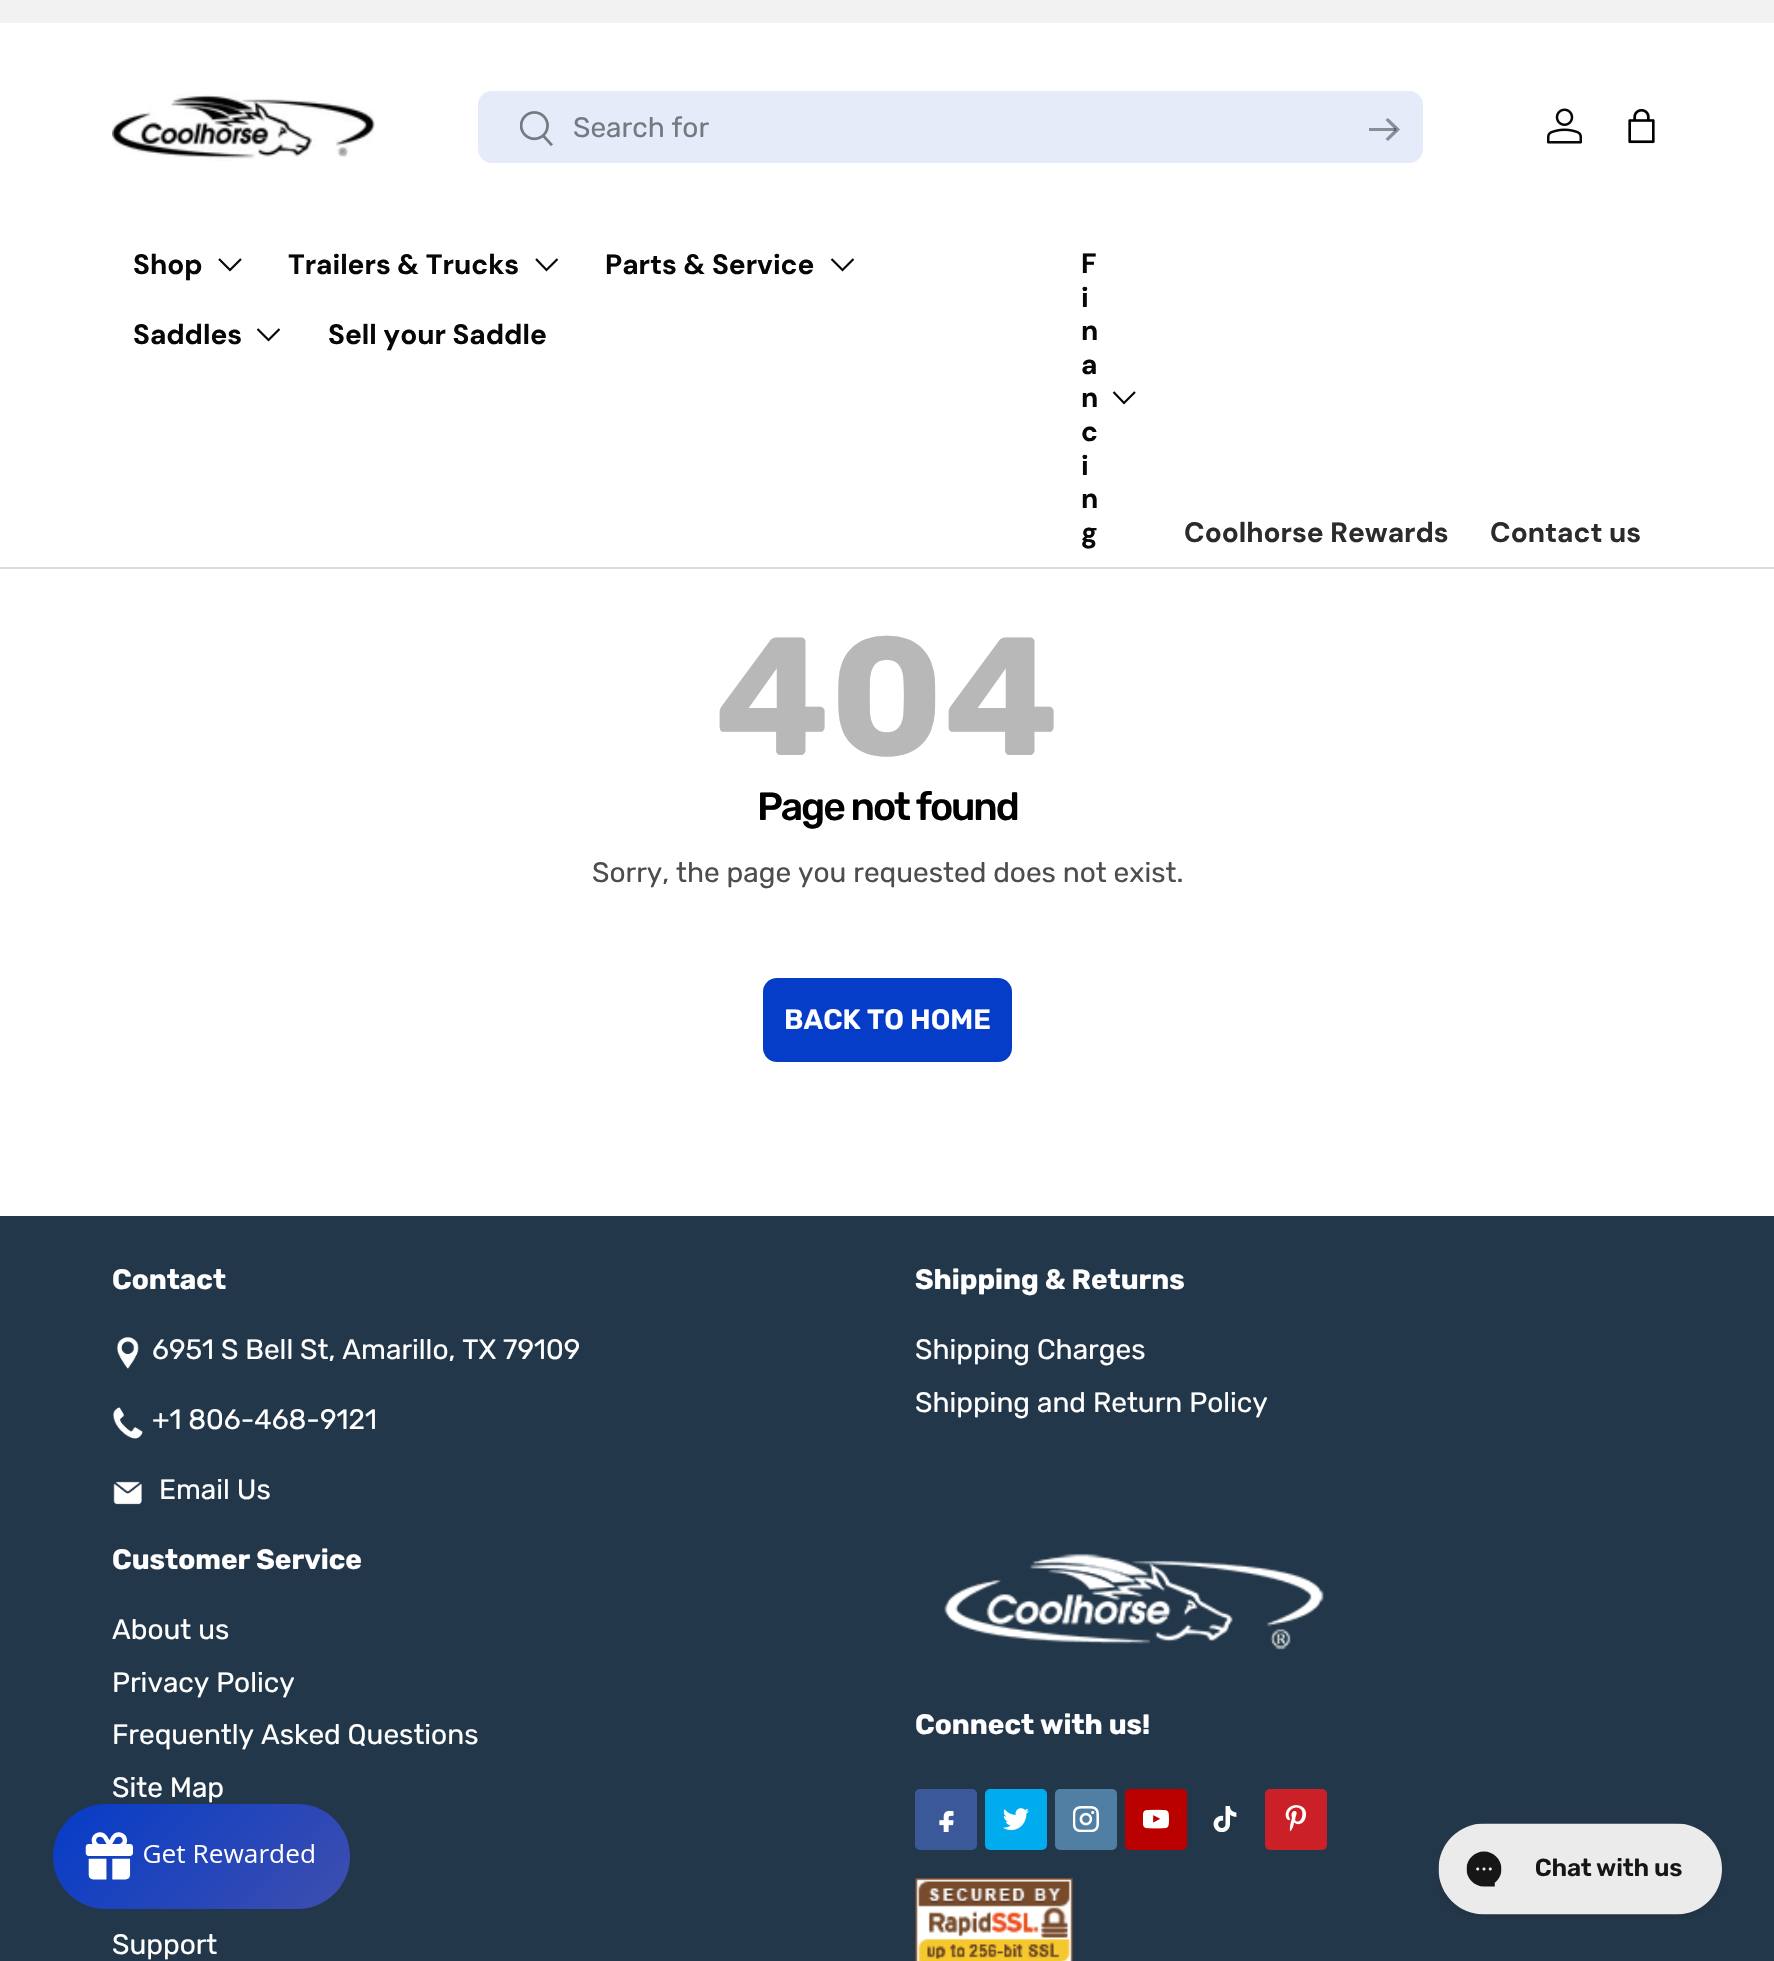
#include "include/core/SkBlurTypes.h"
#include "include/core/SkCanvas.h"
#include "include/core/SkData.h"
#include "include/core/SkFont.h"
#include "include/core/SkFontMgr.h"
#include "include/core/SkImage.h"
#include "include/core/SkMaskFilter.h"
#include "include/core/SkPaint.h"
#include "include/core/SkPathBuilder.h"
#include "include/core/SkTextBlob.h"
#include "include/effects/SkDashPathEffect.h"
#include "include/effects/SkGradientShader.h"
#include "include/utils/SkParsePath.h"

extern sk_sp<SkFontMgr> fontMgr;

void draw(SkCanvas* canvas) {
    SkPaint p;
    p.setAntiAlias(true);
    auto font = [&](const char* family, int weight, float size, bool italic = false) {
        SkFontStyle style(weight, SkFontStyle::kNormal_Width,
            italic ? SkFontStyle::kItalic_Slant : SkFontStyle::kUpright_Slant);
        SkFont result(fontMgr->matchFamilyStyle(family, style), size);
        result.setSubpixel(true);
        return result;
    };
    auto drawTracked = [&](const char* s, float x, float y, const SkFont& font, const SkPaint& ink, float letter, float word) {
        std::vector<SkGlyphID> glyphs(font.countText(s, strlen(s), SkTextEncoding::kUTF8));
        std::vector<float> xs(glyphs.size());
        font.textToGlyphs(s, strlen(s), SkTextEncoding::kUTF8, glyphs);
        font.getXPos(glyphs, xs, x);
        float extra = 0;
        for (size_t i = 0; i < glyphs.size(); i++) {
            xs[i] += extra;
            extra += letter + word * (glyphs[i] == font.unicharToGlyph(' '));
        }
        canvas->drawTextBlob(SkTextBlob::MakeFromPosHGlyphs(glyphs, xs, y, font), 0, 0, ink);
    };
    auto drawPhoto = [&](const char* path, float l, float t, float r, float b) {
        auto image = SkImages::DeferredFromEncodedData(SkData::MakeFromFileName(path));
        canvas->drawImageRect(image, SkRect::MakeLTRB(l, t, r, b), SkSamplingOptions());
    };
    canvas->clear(0xFFFFFFFF);
    p.setColor(0xFFF2F2F2);
    canvas->drawRect(SkRect::MakeLTRB(0, 0, 1774, 23), p);
    p.setColor(0xFFDADADA);
    canvas->drawRect(SkRect::MakeLTRB(0, 567, 1774, 569), p);
    drawPhoto("media/1.png", 112, 94, 375, 161);
    p.setColor(0xFFE6EBF9);
    canvas->drawRoundRect(SkRect::MakeLTRB(478, 91, 1423, 163), 14, 14, p);
    drawPhoto("media/2.png", 520, 111, 553, 146);
    auto font1 = font("Rubik", 400, 28);
    p.setColor(0xFF777980);
    canvas->drawString("Search for", 573, 137, font1, p);
    p.setColor(0xFF8A8D95);
    canvas->drawRect(SkRect::MakeLTRB(1369, 128, 1396, 131), p);
    p.setColor(0x66000000);
    canvas->drawPath(SkPathBuilder().moveTo(1388, 141).lineTo(1385.5f, 139).lineTo(1395, 129.5f).lineTo(1385.5f, 120).lineTo(1388, 118).lineTo(1400, 129.5f).close().detach(), p);
    drawPhoto("media/3.png", 1547, 108, 1582, 144);
    drawPhoto("media/4.png", 1628, 108, 1655, 144);
    auto font2 = font("DM Sans", 700, 28);
    p.setColor(0xFF070707);
    canvas->drawString("Shop", 133, 274, font2, p);
    p.setStyle(SkPaint::kStroke_Style);
    p.setStrokeWidth(2.2f);
    canvas->drawPath(SkPathBuilder().moveTo(241, 259).lineTo(230, 270).lineTo(219, 259).detach(), p);
    p.setStyle(SkPaint::kFill_Style);
    canvas->drawString("Trailers & Trucks", 288, 274, font2, p);
    p.setStyle(SkPaint::kStroke_Style);
    canvas->drawPath(SkPathBuilder().moveTo(557.5f, 259).lineTo(546.5f, 270).lineTo(536, 259).detach(), p);
    p.setStyle(SkPaint::kFill_Style);
    canvas->drawString("Parts & Service", 605, 274, font2, p);
    p.setStyle(SkPaint::kStroke_Style);
    canvas->drawPath(SkPathBuilder().moveTo(853.5f, 259).lineTo(842.5f, 270).lineTo(831.5f, 259).detach(), p);
    p.setStyle(SkPaint::kFill_Style);
    canvas->drawString("Saddles", 133, 344, font2, p);
    p.setStyle(SkPaint::kStroke_Style);
    canvas->drawPath(SkPathBuilder().moveTo(279.5f, 329).lineTo(268.5f, 340).lineTo(257.5f, 329).detach(), p);
    p.setStyle(SkPaint::kFill_Style);
    {
        const struct { const char* s; float x, y; } items[] = {
            {"Sell your Saddle", 328, 344},
            {"F", 1081, 273},
            {"i", 1081, 307},
            {"n", 1081, 340},
            {"a", 1081, 374},
            {"n", 1081, 407},
        };
        for (auto [s, x, y] : items) {
            canvas->drawString(s, x, y, font2, p);
        }
    }
    p.setStyle(SkPaint::kStroke_Style);
    canvas->drawPath(SkPathBuilder().moveTo(1135, 392).lineTo(1124, 403).lineTo(1113.5f, 392).detach(), p);
    p.setStyle(SkPaint::kFill_Style);
    {
        const struct { const char* s; float x, y; } items[] = {
            {"c", 1081, 441},
            {"i", 1081, 475},
            {"n", 1081, 508},
            {"g", 1081, 542},
        };
        for (auto [s, x, y] : items) {
            canvas->drawString(s, x, y, font2, p);
        }
    }
    p.setColor(0xFF2A2B2A);
    canvas->drawString("Coolhorse Rewards", 1184, 542, font2, p);
    canvas->drawString("Contact us", 1490, 542, font2, p);
    auto font3 = font("Rubik", 700, 168);
    p.setColor(0xFFB8B8B8);
    canvas->drawString("404", 715, 755, font3, p);
    auto font4 = font("Rubik", 500, 39.25f);
    p.setColor(0xFF000000);
    drawTracked("Page not found", 757, 820, font4, p, -2.1f, 0);
    p.setColor(0xFF4D4D4D);
    canvas->drawString("Sorry, the page you requested does not exist.", 592, 882, font1, p);
    p.setColor(0xFF053CC8);
    canvas->drawRoundRect(SkRect::MakeLTRB(763, 978, 1012, 1062), 14, 14, p);
    auto font5 = font("Rubik", 600, 28);
    p.setColor(0xFFFFFFFF);
    canvas->drawString("BACK TO HOME", 784, 1029, font5, p);
    p.setColor(0xFF23374A);
    canvas->drawRect(SkRect::MakeLTRB(0, 1216, 1774, 1961), p);
    auto font6 = font("Rubik", 700, 28);
    p.setColor(0xFFFFFFFF);
    canvas->drawString("Contact", 112, 1289, font6, p);
    drawPhoto("media/5.png", 117, 1337, 139, 1369);
    canvas->drawString("6951 S Bell St, Amarillo, TX 79109", 152, 1359, font1, p);
    drawPhoto("media/6.png", 113, 1407, 143, 1439);
    canvas->drawString("+1 806-468-9121", 152, 1429, font1, p);
    drawPhoto("media/7.png", 113, 1481, 142, 1505);
    canvas->drawString("Email Us", 159, 1499, font1, p);
    canvas->drawString("Shipping & Returns", 915, 1289, font6, p);
    canvas->drawString("Shipping Charges", 915, 1359, font1, p);
    canvas->drawString("Shipping and Return Policy", 915, 1412, font1, p);
    canvas->drawString("Customer Service", 112, 1569, font6, p);
    {
        const struct { const char* s; float x, y; } items[] = {
            {"About us", 112, 1639},
            {"Privacy Policy", 112, 1692},
            {"Frequently Asked Questions", 112, 1744},
            {"Site Map", 112, 1797},
            {"Support", 112, 1954},
        };
        for (auto [s, x, y] : items) {
            canvas->drawString(s, x, y, font1, p);
        }
    }
    drawPhoto("media/8.png", 944, 1553, 1324, 1650);
    canvas->drawString("Connect with us!", 915, 1734, font6, p);
    p.setColor(0xFF3B5998);
    canvas->drawRoundRect(SkRect::MakeLTRB(915, 1789, 977, 1850), 5, 5, p);
    drawPhoto("media/9.png", 939, 1810, 954, 1832);
    p.setColor(0xFF00ACED);
    canvas->drawRoundRect(SkRect::MakeLTRB(985, 1789, 1047, 1850), 5, 5, p);
    drawPhoto("media/10.png", 1003, 1808, 1029, 1831);
    p.setColor(0xFF517FA4);
    canvas->drawRoundRect(SkRect::MakeLTRB(1055, 1789, 1117, 1850), 5, 5, p);
    drawPhoto("media/11.png", 1073, 1806, 1099, 1832);
    p.setColor(0xFFBB0000);
    canvas->drawRoundRect(SkRect::MakeLTRB(1125, 1789, 1187, 1850), 5, 5, p);
    drawPhoto("media/12.png", 1143, 1809, 1169, 1829);
    drawPhoto("media/13.png", 1213, 1806, 1237, 1832);
    p.setColor(0xFFCB2027);
    canvas->drawRoundRect(SkRect::MakeLTRB(1265, 1789, 1327, 1850), 5, 5, p);
    drawPhoto("media/14.png", 1285, 1805, 1307, 1832);
    drawPhoto("media/15.png", 915, 1878, 1073, 1961);
    {
        const SkColor colors[] = {0xFF053CC8, 0xFF3F4EAE};
        const float stops[] = {0, 1};
        const SkPoint ends[] = {{101, 1756}, {302, 1957}};
        p.setShader(SkGradientShader::MakeLinear(ends, colors, stops, 2, SkTileMode::kClamp));
        p.setAlpha(255);
    }
    canvas->drawRoundRect(SkRect::MakeLTRB(53, 1804, 350, 1909), 52.5f, 52.5f, p);
    drawPhoto("media/16.png", 85, 1832, 314, 1880);
    drawPhoto("media/17.png", 1438, 1823, 1722, 1919);
}
